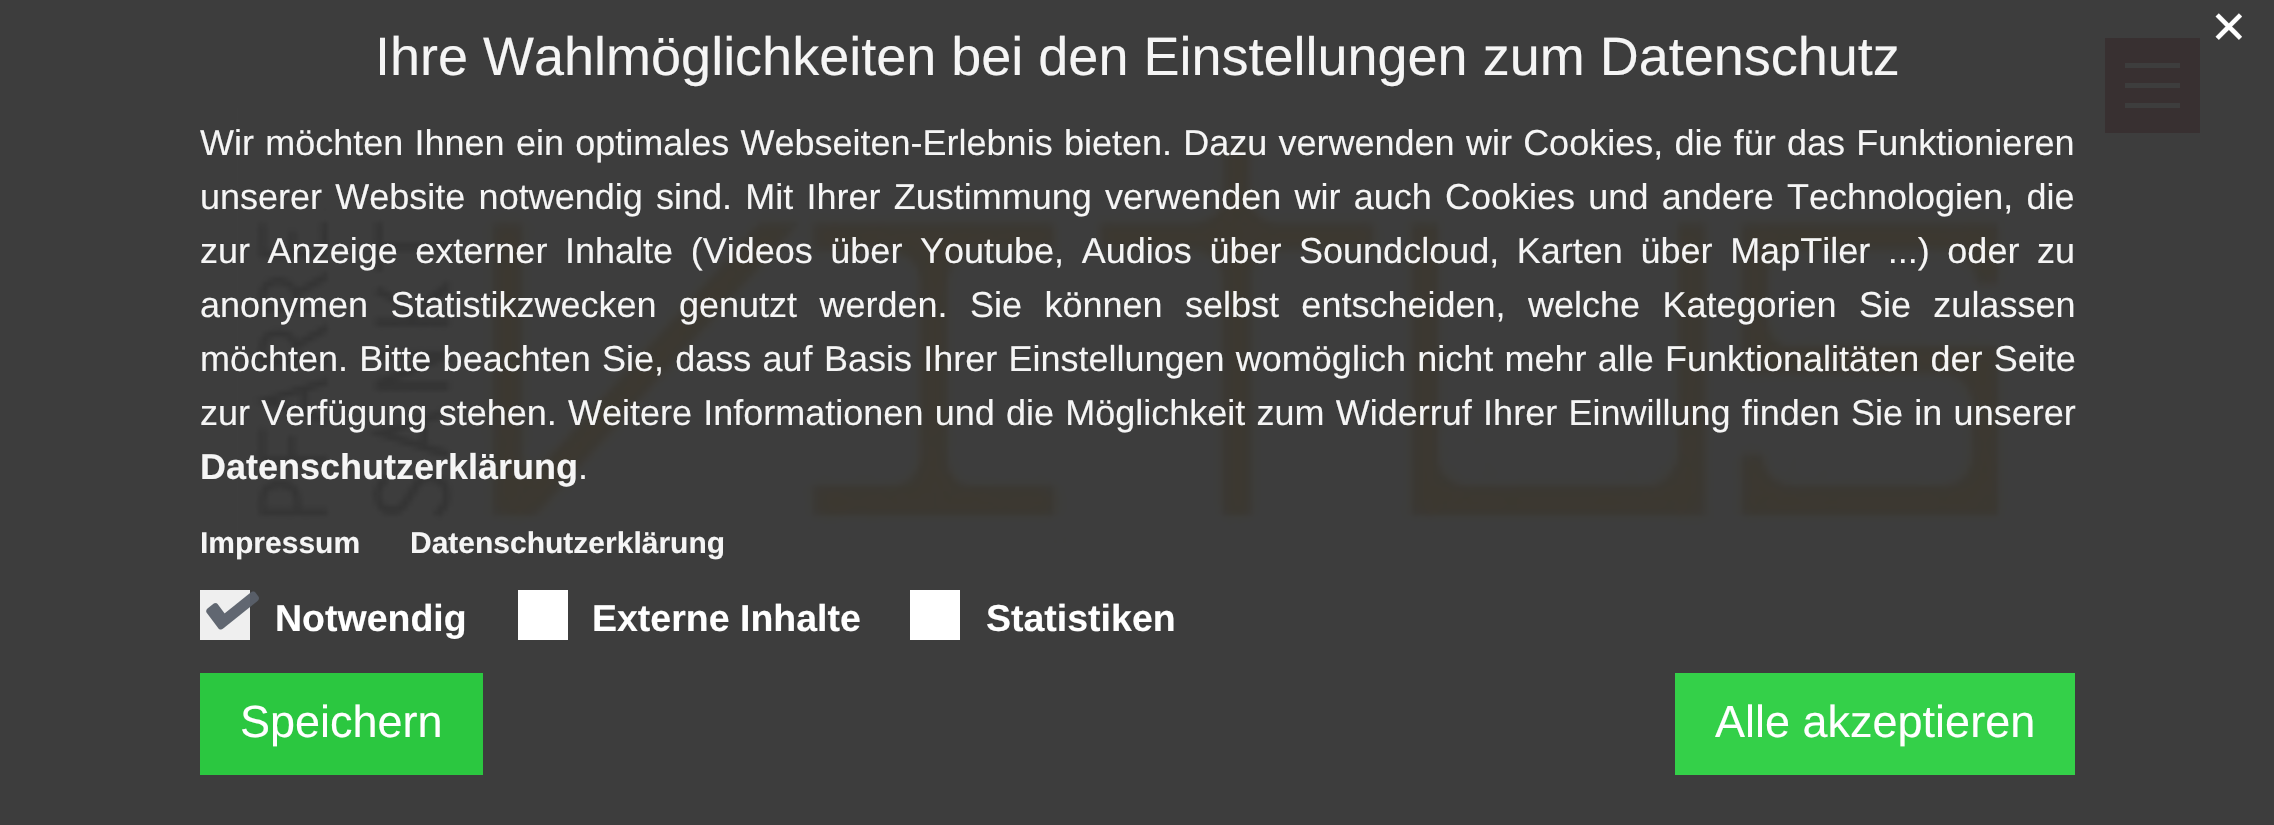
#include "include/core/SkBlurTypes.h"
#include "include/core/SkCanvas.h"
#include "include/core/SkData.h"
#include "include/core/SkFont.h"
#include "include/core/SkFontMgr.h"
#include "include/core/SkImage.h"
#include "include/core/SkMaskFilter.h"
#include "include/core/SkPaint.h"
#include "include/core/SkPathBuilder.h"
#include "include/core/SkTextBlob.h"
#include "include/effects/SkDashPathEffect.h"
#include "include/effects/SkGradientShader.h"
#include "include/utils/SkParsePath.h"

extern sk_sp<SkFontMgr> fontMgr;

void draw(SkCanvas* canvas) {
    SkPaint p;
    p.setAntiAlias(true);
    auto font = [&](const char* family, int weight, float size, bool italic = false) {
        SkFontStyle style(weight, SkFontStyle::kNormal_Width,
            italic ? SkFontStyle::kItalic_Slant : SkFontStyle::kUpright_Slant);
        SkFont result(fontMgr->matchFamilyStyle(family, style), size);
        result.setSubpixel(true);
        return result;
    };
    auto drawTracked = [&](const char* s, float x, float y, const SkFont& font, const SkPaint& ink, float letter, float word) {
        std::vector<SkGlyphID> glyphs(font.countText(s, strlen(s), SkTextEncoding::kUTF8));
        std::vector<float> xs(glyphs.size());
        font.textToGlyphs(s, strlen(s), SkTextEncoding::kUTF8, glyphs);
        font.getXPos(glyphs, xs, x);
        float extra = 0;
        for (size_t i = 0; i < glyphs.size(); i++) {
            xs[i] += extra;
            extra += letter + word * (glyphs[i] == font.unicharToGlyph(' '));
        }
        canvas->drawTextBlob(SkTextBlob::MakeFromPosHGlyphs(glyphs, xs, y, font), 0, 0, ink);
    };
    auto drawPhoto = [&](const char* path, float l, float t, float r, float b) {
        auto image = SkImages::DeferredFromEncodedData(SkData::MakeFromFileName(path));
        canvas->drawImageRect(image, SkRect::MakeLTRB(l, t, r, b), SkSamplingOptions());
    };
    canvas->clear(0xFF3D3D3D);
    auto font1 = font("DejaVu Sans", 400, 45);
    p.setColor(0xFFFFFFFF);
    canvas->drawString("✕", 2210, 43, font1, p);
    auto font2 = font("Liberation Sans", 400, 54);
    p.setColor(0xFFF5F5F5);
    canvas->drawString("Ihre Wahlmöglichkeiten bei den Einstellungen zum Datenschutz", 375, 75, font2, p);
    drawPhoto("media/2.png", 237, 108, 2032, 550);
    auto font3 = font("Liberation Sans", 400, 36);
    drawTracked("Wir möchten Ihnen ein optimales Webseiten-Erlebnis bieten. Dazu verwenden wir Cookies, die für das Funktionieren", 200, 155, font3, p, 0, 1.25f);
    drawTracked("unserer Website notwendig sind. Mit Ihrer Zustimmung verwenden wir auch Cookies und andere Technologien, die", 200, 209, font3, p, 0, 3.25f);
    drawTracked("zur Anzeige externer Inhalte (Videos über Youtube, Audios über Soundcloud, Karten über MapTiler ...) oder zu", 200, 263, font3, p, 0, 7.6f);
    drawTracked("anonymen Statistikzwecken genutzt werden. Sie können selbst entscheiden, welche Kategorien Sie zulassen", 200, 317, font3, p, 0, 12.4f);
    drawTracked("möchten. Bitte beachten Sie, dass auf Basis Ihrer Einstellungen womöglich nicht mehr alle Funktionalitäten der Seite", 200, 371, font3, p, 0, 1.25f);
    drawTracked("zur Verfügung stehen. Weitere Informationen und die Möglichkeit zum Widerruf Ihrer Einwillung finden Sie in unserer", 200, 425, font3, p, 0, 1.25f);
    auto font4 = font("Liberation Sans", 700, 36);
    canvas->drawString("Datenschutzerklärung", 200, 479, font4, p);
    canvas->drawString(".", 578, 479, font3, p);
    auto font5 = font("Liberation Sans", 700, 30);
    canvas->drawString("Impressum", 200, 553, font5, p);
    canvas->drawString("Datenschutzerklärung", 410, 553, font5, p);
    p.setColor(0xFFEFEFEF);
    canvas->drawRect(SkRect::MakeLTRB(200, 590, 250, 640), p);
    drawPhoto("media/1.png", 206, 591, 259, 630);
    auto font6 = font("Liberation Sans", 700, 37.5f);
    p.setColor(0xFFFFFFFF);
    canvas->drawString("Notwendig", 275, 631, font6, p);
    canvas->drawRect(SkRect::MakeLTRB(518, 590, 568, 640), p);
    canvas->drawString("Externe Inhalte", 592, 631, font6, p);
    canvas->drawRect(SkRect::MakeLTRB(910, 590, 960, 640), p);
    canvas->drawString("Statistiken", 986, 631, font6, p);
    p.setColor(0xF229CE3F);
    canvas->drawRect(SkRect::MakeLTRB(200, 673, 483, 775), p);
    auto font7 = font("Liberation Sans", 400, 45);
    p.setColor(0xFFFFFFFF);
    canvas->drawString("Speichern", 240, 737, font7, p);
    p.setColor(0xFF34D049);
    canvas->drawRect(SkRect::MakeLTRB(1675, 673, 2075, 775), p);
    p.setColor(0xFFFFFFFF);
    canvas->drawString("Alle akzeptieren", 1715, 737, font7, p);
    {
        const struct { float l, t, r, b; SkColor color; } items[] = {
            {2105, 38, 2200, 133, 0xFF383031},
            {2125, 83, 2180, 88, 0xFF3D3D3D},
            {2125, 63, 2180, 68, 0xFF3D3D3D},
            {2125, 103, 2180, 108, 0xFF3D3D3D},
        };
        for (auto [l, t, r, b, color] : items) {
            p.setColor(color);
            canvas->drawRect(SkRect::MakeLTRB(l, t, r, b), p);
        }
    }
}
